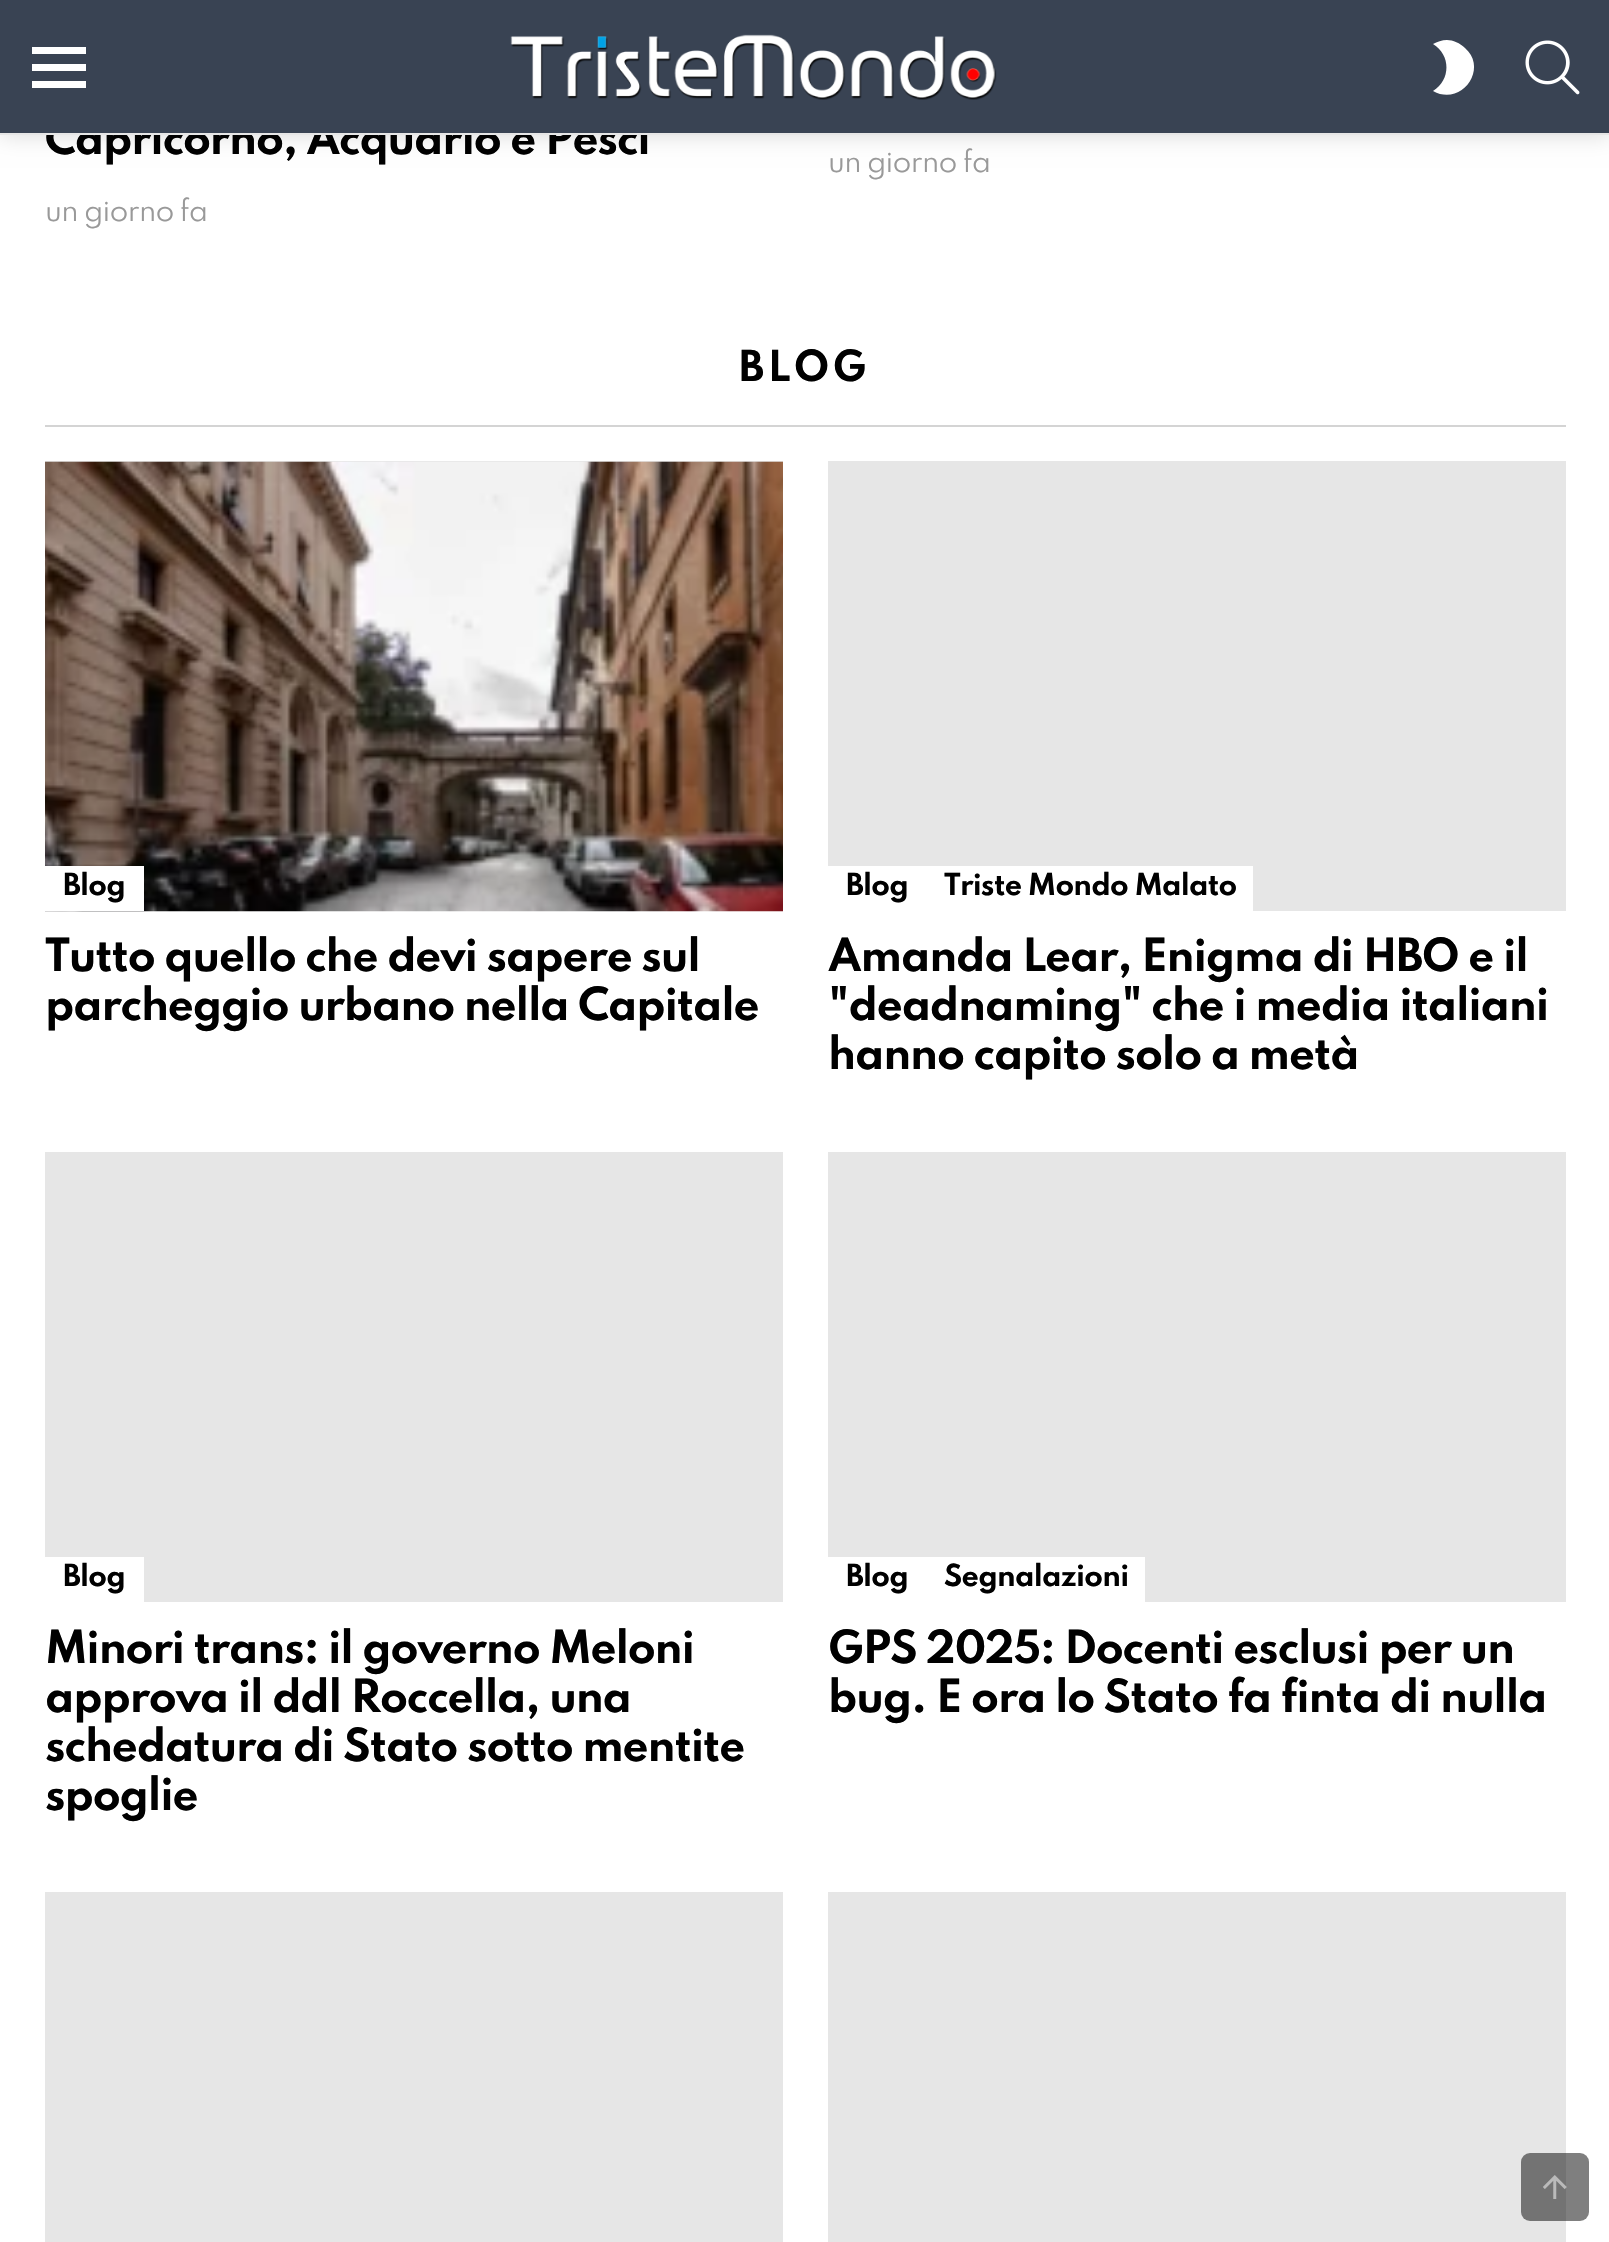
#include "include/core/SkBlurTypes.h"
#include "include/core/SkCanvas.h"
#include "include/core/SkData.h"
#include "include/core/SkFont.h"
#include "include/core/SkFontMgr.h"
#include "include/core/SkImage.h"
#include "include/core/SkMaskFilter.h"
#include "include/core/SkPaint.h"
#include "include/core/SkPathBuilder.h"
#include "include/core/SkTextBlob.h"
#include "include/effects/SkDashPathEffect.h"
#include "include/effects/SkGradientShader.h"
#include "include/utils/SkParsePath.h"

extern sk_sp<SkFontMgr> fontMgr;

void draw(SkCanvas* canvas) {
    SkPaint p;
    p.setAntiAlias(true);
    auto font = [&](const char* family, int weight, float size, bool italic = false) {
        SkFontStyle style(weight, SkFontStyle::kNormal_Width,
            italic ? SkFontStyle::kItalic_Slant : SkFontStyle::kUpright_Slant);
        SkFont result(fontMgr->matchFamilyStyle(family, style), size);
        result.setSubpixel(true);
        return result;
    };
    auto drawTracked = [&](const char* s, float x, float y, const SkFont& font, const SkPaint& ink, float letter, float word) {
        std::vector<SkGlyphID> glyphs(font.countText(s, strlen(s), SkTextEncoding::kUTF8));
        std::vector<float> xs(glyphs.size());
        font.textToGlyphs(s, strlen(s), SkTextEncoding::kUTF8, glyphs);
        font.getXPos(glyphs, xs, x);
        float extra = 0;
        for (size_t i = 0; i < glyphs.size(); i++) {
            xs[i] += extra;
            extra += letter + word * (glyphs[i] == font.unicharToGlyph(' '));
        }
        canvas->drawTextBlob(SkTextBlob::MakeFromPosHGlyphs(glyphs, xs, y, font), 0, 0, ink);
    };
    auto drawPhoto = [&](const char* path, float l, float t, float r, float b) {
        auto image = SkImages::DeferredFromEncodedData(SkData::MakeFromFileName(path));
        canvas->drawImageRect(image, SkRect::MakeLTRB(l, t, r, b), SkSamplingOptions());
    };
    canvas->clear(0xFFFFFFFF);
    p.setColor(0x26000000);
    p.setMaskFilter(SkMaskFilter::MakeBlur(kNormal_SkBlurStyle, 11));
    canvas->drawRect(SkRect::MakeLTRB(0, 0, 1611, 135), p);
    p.setMaskFilter(nullptr);
    auto font1 = font("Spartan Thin", 700, 40.5f);
    p.setColor(0xFF000000);
    drawTracked("Capricorno, Acquario e Pesci", 45, 154, font1, p, -1.2f, 0);
    p.setColor(0xFF394353);
    canvas->drawRect(SkRect::MakeLTRB(0, 0, 1609, 133), p);
    p.setColor(0xFFE6E6E6);
    canvas->drawRect(SkRect::MakeLTRB(0, 133, 1609, 135), p);
    p.setColor(0xFFFFFFFF);
    canvas->drawPath(SkPathBuilder().moveTo(32, 47).lineTo(86, 47).lineTo(86, 54).lineTo(32, 54).close().moveTo(32, 64).lineTo(86, 64).lineTo(86, 71).lineTo(32, 71).close().moveTo(32, 81).lineTo(86, 81).lineTo(86, 88).lineTo(32, 88).close().detach(), p);
    drawPhoto("media/1.png", 510, 34, 997, 100);
    canvas->drawPath(SkPathBuilder().moveTo(1447, 40).cubicTo(1442, 40, 1437, 42, 1433, 44).cubicTo(1451, 55, 1451, 80, 1433, 91).cubicTo(1461, 107, 1489, 69, 1465, 48).cubicTo(1460, 43, 1453, 40, 1447, 40).close().detach(), p);
    drawPhoto("media/2.png", 1525, 40, 1580, 95);
    auto font2 = font("Spartan Thin", 400, 27);
    p.setColor(0xFF999999);
    drawTracked("un giorno fa", 45, 221, font2, p, -0.8f, 0);
    drawTracked("un giorno fa", 828, 172, font2, p, -0.8f, 0);
    auto font3 = font("Spartan Thin", 700, 38);
    p.setColor(0xFF000000);
    drawTracked("BLOG", 739, 381, font3, p, 3.5f, 0);
    p.setColor(0xFFD4D4D4);
    canvas->drawRect(SkRect::MakeLTRB(45, 425, 1566, 427), p);
    p.setColor(0xFFE6E6E6);
    canvas->drawRect(SkRect::MakeLTRB(45, 461, 783, 462), p);
    drawPhoto("media/3.png", 45, 461, 783, 912);
    p.setColor(0xFFFFFFFF);
    canvas->drawRect(SkRect::MakeLTRB(45, 866, 144, 911), p);
    auto font4 = font("Spartan Thin", 700, 27);
    p.setColor(0xFF000000);
    drawTracked("Blog", 63, 895, font4, p, -0.8f, 0);
    drawTracked("Tutto quello che devi sapere sul", 45, 971, font1, p, -1.2f, 0);
    drawTracked("parcheggio urbano nella Capitale", 45, 1020, font1, p, -1.2f, 0);
    p.setColor(0xFFE6E6E6);
    canvas->drawRect(SkRect::MakeLTRB(828, 461, 1566, 911), p);
    p.setColor(0xFFFFFFFF);
    canvas->drawRect(SkRect::MakeLTRB(828, 866, 1253, 911), p);
    p.setColor(0xFF000000);
    drawTracked("Blog", 846, 895, font4, p, -0.8f, 0);
    drawTracked("Triste Mondo Malato", 944, 895, font4, p, -0.8f, 0);
    {
        const struct { const char* s; float x, y; } items[] = {
            {"Amanda Lear, Enigma di HBO e il", 828, 971},
            {"\"deadnaming\" che i media italiani", 828, 1020},
            {"hanno capito solo a metà", 828, 1069},
        };
        for (auto [s, x, y] : items) {
            drawTracked(s, x, y, font1, p, -1.2f, 0);
        }
    }
    p.setColor(0xFFE6E6E6);
    canvas->drawRect(SkRect::MakeLTRB(45, 1152, 783, 1602), p);
    p.setColor(0xFFFFFFFF);
    canvas->drawRect(SkRect::MakeLTRB(45, 1557, 144, 1602), p);
    p.setColor(0xFF000000);
    drawTracked("Blog", 63, 1586, font4, p, -0.8f, 0);
    {
        const struct { const char* s; float x, y; } items[] = {
            {"Minori trans: il governo Meloni", 45, 1663},
            {"approva il ddl Roccella, una", 45, 1712},
            {"schedatura di Stato sotto mentite", 45, 1761},
            {"spoglie", 45, 1810},
        };
        for (auto [s, x, y] : items) {
            drawTracked(s, x, y, font1, p, -1.2f, 0);
        }
    }
    p.setColor(0xFFE6E6E6);
    canvas->drawRect(SkRect::MakeLTRB(828, 1152, 1566, 1602), p);
    p.setColor(0xFFFFFFFF);
    canvas->drawRect(SkRect::MakeLTRB(828, 1557, 1145, 1602), p);
    p.setColor(0xFF000000);
    drawTracked("Blog", 846, 1586, font4, p, -0.8f, 0);
    drawTracked("Segnalazioni", 944, 1586, font4, p, -0.8f, 0);
    drawTracked("GPS 2025: Docenti esclusi per un", 828, 1663, font1, p, -1.2f, 0);
    drawTracked("bug. E ora lo Stato fa finta di nulla", 828, 1712, font1, p, -1.2f, 0);
    p.setColor(0xFFE6E6E6);
    canvas->drawRect(SkRect::MakeLTRB(45, 1892, 783, 2242), p);
    canvas->drawRect(SkRect::MakeLTRB(828, 1892, 1566, 2242), p);
    p.setColor(0x80000000);
    canvas->drawRoundRect(SkRect::MakeLTRB(1521, 2153, 1589, 2221), 9, 9, p);
    drawPhoto("media/4.png", 1543, 2175, 1567, 2199);
}
